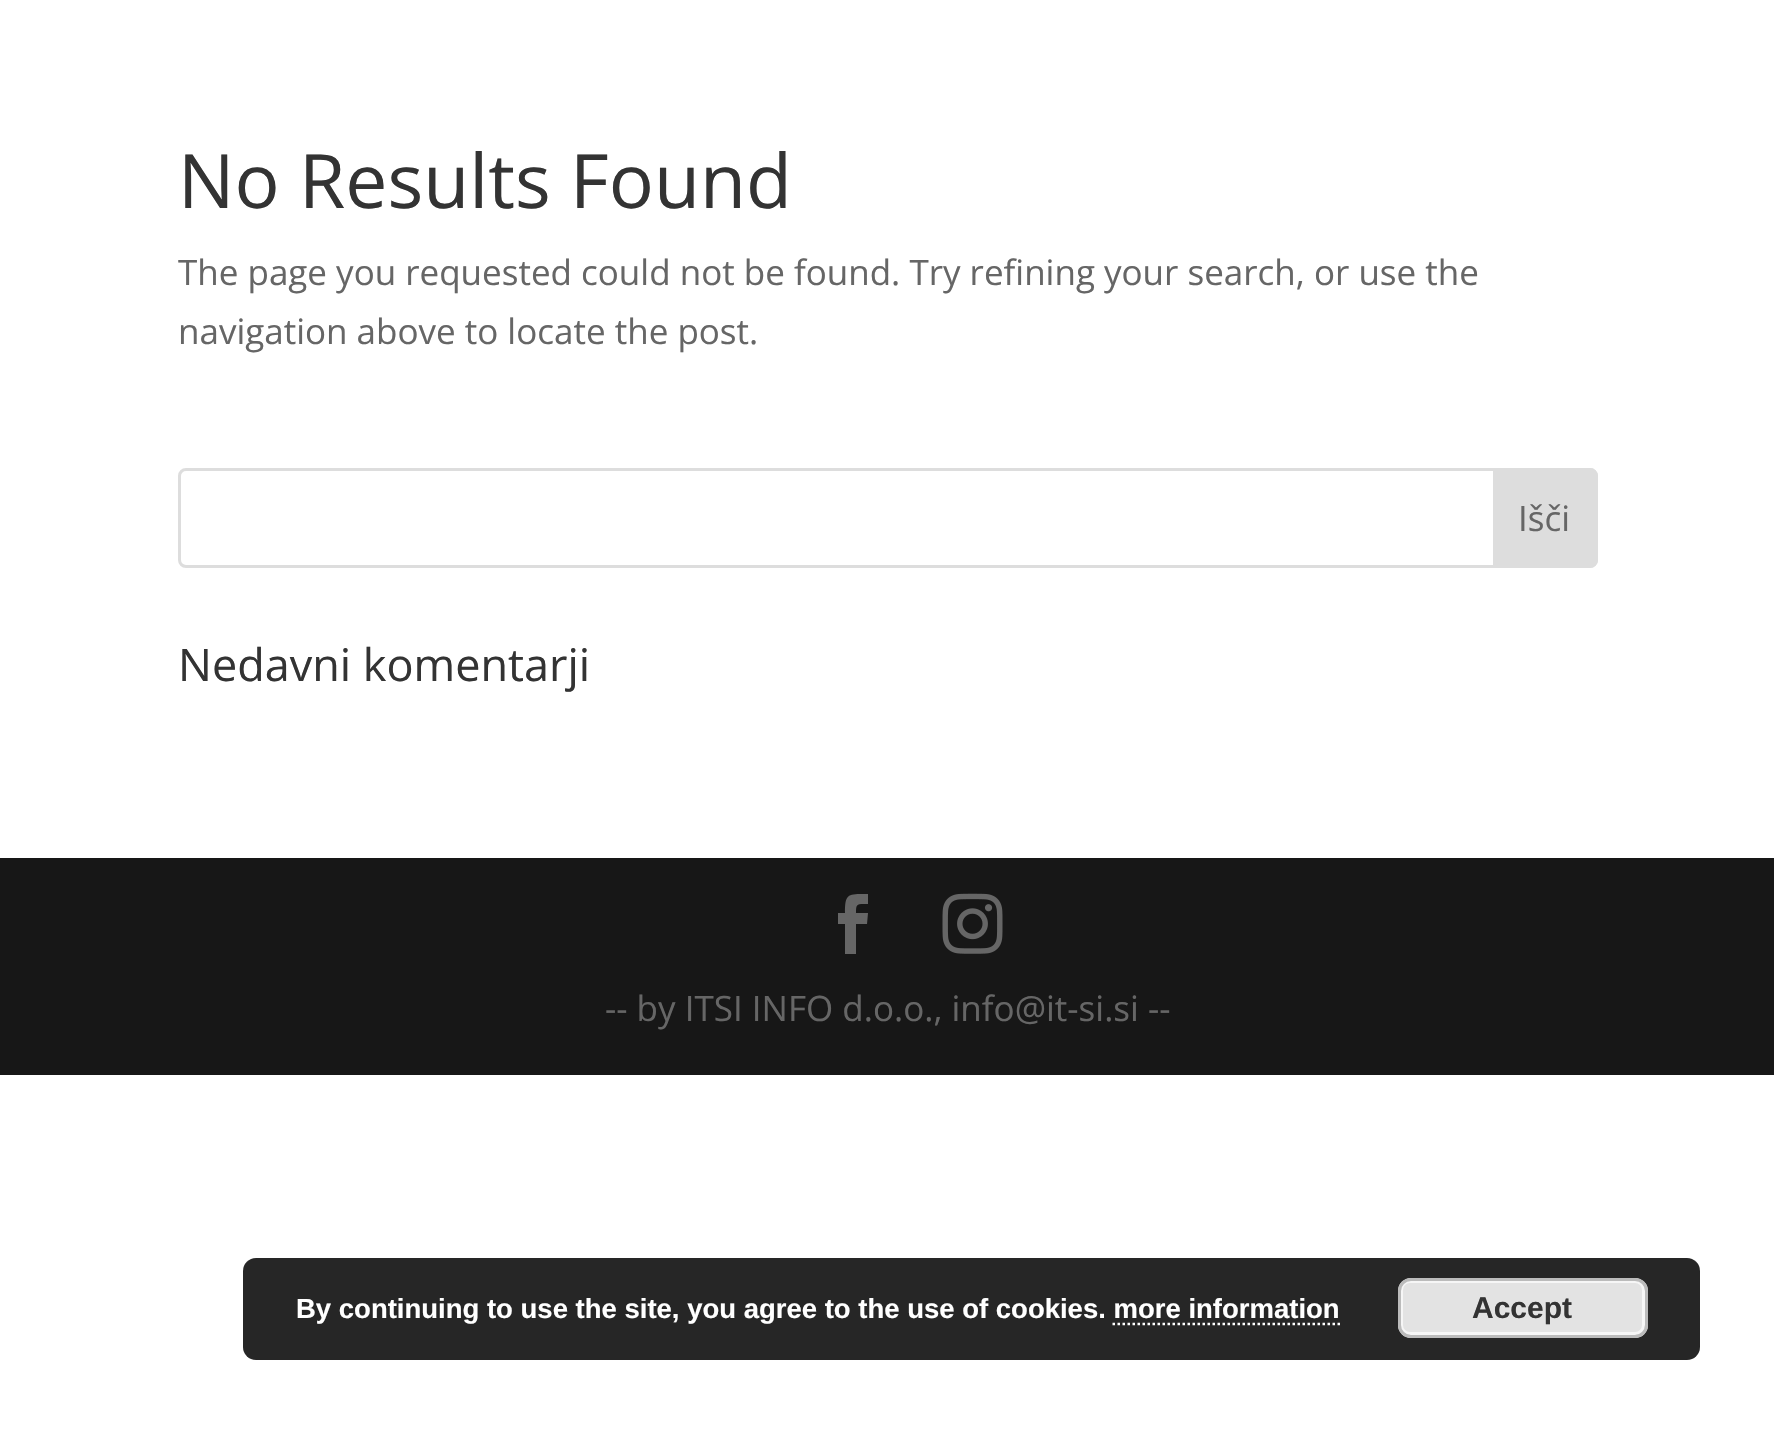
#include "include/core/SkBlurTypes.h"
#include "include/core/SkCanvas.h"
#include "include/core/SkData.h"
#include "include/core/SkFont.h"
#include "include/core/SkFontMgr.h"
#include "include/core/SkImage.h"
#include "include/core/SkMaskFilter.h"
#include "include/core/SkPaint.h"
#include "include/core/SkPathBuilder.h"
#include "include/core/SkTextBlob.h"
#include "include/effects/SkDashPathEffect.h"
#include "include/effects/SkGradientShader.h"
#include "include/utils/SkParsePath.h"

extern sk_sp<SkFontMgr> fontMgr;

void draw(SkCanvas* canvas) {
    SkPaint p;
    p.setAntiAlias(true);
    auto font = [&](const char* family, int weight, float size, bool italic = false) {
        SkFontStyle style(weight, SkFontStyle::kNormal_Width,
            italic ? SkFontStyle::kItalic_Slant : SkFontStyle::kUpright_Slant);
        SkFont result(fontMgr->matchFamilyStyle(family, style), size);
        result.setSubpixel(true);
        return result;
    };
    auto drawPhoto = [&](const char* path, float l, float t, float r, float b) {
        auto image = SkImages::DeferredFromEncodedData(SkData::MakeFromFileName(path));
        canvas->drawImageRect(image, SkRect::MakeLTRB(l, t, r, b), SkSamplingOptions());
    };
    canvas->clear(0xFFFFFFFF);
    auto font1 = font("Open Sans", 400, 75);
    p.setColor(0xFF333333);
    canvas->drawString("No Results Found", 178, 208, font1, p);
    auto font2 = font("Open Sans", 400, 35);
    p.setColor(0xFF666666);
    canvas->drawString("The page you requested could not be found. Try refining your search, or use the", 178, 285, font2, p);
    canvas->drawString("navigation above to locate the post.", 178, 344, font2, p);
    p.setStyle(SkPaint::kStroke_Style);
    p.setStrokeWidth(3);
    p.setColor(0xFFDDDDDD);
    canvas->drawRoundRect(SkRect::MakeLTRB(179.5f, 469.5f, 1596.5f, 566.5f), 6.5f, 6.5f, p);
    p.setStyle(SkPaint::kFill_Style);
    canvas->drawPath(SkPathBuilder().moveTo(1494.5f, 469.5f).lineTo(1590, 469.5f).cubicTo(1593.5f, 469.5f, 1596.5f, 472.5f, 1596.5f, 476).lineTo(1596.5f, 560).cubicTo(1596.5f, 563.5f, 1593.5f, 566.5f, 1590, 566.5f).lineTo(1494.5f, 566.5f).close().detach(), p);
    p.setStyle(SkPaint::kStroke_Style);
    canvas->drawPath(SkPathBuilder().moveTo(1494.5f, 469.5f).lineTo(1590, 469.5f).cubicTo(1593.5f, 469.5f, 1596.5f, 472.5f, 1596.5f, 476).lineTo(1596.5f, 560).cubicTo(1596.5f, 563.5f, 1593.5f, 566.5f, 1590, 566.5f).lineTo(1494.5f, 566.5f).close().detach(), p);
    p.setStyle(SkPaint::kFill_Style);
    p.setColor(0xFF666666);
    canvas->drawString("Išči", 1518, 531, font2, p);
    auto font3 = font("Open Sans", 400, 45);
    p.setColor(0xFF333333);
    canvas->drawString("Nedavni komentarji", 178, 681, font3, p);
    p.setColor(0xFF171717);
    canvas->drawRect(SkRect::MakeLTRB(0, 858, 1774, 1075), p);
    p.setColor(0xFF666666);
    canvas->drawPath(SkPathBuilder().moveTo(845, 954).lineTo(856, 954).lineTo(856, 924).lineTo(867, 924).lineTo(868, 913).lineTo(856, 913).cubicTo(856, 903, 857, 904, 868, 904).lineTo(868, 894).cubicTo(848, 894, 845, 893, 845, 913).lineTo(838, 913).lineTo(838, 924).lineTo(845, 924).close().detach(), p);
    drawPhoto("media/1.png", 942, 893, 1003, 954);
    canvas->drawString("-- by ITSI INFO d.o.o., info@it-si.si --", 605, 1021, font2, p);
    p.setColor(0xFF262626);
    canvas->drawRoundRect(SkRect::MakeLTRB(243, 1258, 1700, 1360), 13, 13, p);
    auto font4 = font("Liberation Sans", 700, 27.5f);
    p.setColor(0xFFFFFFFF);
    canvas->drawString("By continuing to use the site, you agree to the use of cookies. more information", 296, 1318, font4, p);
    p.setColor(0xFFE3E3E3);
    canvas->drawRoundRect(SkRect::MakeLTRB(1398, 1278, 1648, 1338), 13, 13, p);
    p.setStyle(SkPaint::kStroke_Style);
    p.setColor(0xFFF6F6F6);
    canvas->drawRoundRect(SkRect::MakeLTRB(1401.5f, 1281.5f, 1643.5f, 1333.5f), 8.5f, 8.5f, p);
    p.setColor(0xFFBBBBBB);
    canvas->drawRoundRect(SkRect::MakeLTRB(1399.5f, 1279.5f, 1646.5f, 1336.5f), 11.5f, 11.5f, p);
    auto font5 = font("Liberation Sans", 700, 30);
    p.setStyle(SkPaint::kFill_Style);
    p.setColor(0xFF333333);
    canvas->drawString("Accept", 1472, 1318, font5, p);
    p.setStyle(SkPaint::kStroke_Style);
    p.setStrokeWidth(2.5f);
    p.setColor(0xFFFFFFFF);
    p.setPathEffect(SkDashPathEffect::Make({{2.5f, 2.5f}}, 0));
    canvas->drawPath(SkPathBuilder().moveTo(1112.5f, 1324).lineTo(1340, 1324).detach(), p);
    p.setPathEffect(nullptr);
}
